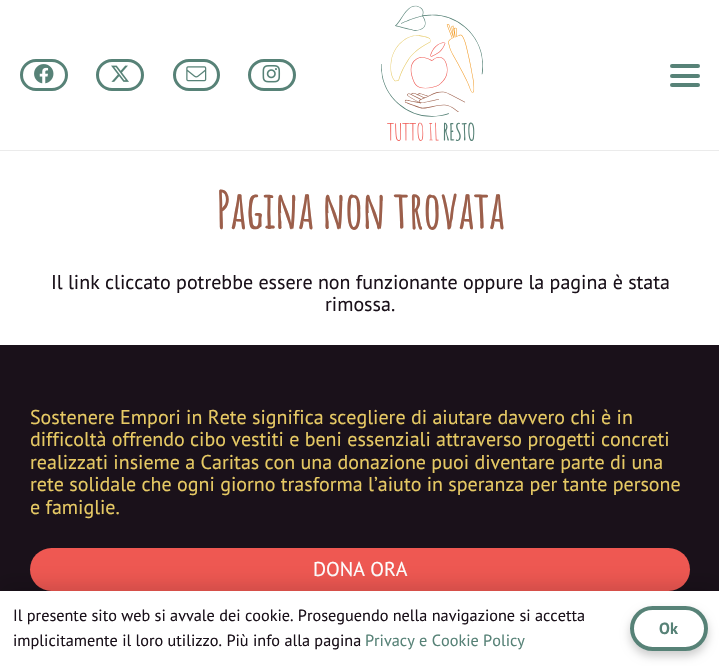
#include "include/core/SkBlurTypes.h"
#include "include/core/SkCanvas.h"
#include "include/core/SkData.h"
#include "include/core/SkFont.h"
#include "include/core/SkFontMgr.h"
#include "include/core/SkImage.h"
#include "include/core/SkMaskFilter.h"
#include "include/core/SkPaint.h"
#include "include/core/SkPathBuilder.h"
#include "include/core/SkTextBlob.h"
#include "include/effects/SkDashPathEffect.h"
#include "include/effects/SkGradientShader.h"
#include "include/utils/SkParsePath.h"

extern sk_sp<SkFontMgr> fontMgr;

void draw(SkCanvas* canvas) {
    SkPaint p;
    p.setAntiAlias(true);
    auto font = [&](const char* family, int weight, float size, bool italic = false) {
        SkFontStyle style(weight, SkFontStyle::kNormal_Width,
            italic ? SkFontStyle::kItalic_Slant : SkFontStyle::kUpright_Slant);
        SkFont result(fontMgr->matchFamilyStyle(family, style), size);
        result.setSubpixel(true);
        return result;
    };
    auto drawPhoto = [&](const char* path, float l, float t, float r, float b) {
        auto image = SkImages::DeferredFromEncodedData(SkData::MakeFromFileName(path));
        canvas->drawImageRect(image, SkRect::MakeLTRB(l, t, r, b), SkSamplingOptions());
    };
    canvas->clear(0xFFFFFFFF);
    p.setColor(0xFFEBEBEB);
    canvas->drawRect(SkRect::MakeLTRB(0, 150, 719, 151), p);
    p.setStyle(SkPaint::kStroke_Style);
    p.setStrokeWidth(3);
    p.setColor(0xFF578277);
    canvas->drawRoundRect(SkRect::MakeLTRB(21.5f, 60.5f, 66.5f, 89.5f), 14.5f, 14.5f, p);
    drawPhoto("media/1.png", 34, 64, 54, 84);
    canvas->drawRoundRect(SkRect::MakeLTRB(97.5f, 60.5f, 142.5f, 89.5f), 14.5f, 14.5f, p);
    drawPhoto("media/2.png", 111, 65, 129, 82);
    canvas->drawRoundRect(SkRect::MakeLTRB(174.5f, 60.5f, 218.5f, 89.5f), 14.5f, 14.5f, p);
    drawPhoto("media/3.png", 186, 66, 207, 82);
    canvas->drawRoundRect(SkRect::MakeLTRB(249.5f, 60.5f, 294.5f, 89.5f), 14.5f, 14.5f, p);
    drawPhoto("media/4.png", 262, 65, 281, 83);
    drawPhoto("media/5.png", 381, 5, 483, 141);
    p.setStyle(SkPaint::kFill_Style);
    canvas->drawRoundRect(SkRect::MakeLTRB(670, 74, 700, 78), 2, 2, p);
    canvas->drawRoundRect(SkRect::MakeLTRB(670, 64, 700, 68), 2, 2, p);
    canvas->drawRoundRect(SkRect::MakeLTRB(670, 83, 700, 87), 2, 2, p);
    auto font1 = font("Amatic SC", 700, 50);
    p.setColor(0xFF9C5F4B);
    canvas->drawString("Pagina non trovata", 216, 229, font1, p);
    auto font2 = font("PT Sans", 400, 20);
    p.setColor(0xFF1A111A);
    canvas->drawString("Il link cliccato potrebbe essere non funzionante oppure la pagina è stata", 51, 289, font2, p);
    canvas->drawString("rimossa.", 325, 311, font2, p);
    canvas->drawRect(SkRect::MakeLTRB(0, 345, 719, 591), p);
    p.setColor(0xFFE6C964);
    {
        const struct { const char* s; float x, y; } items[] = {
            {"Sostenere Empori in Rete significa scegliere di aiutare davvero chi è in", 30, 424},
            {"difficoltà offrendo cibo vestiti e beni essenziali attraverso progetti concreti", 30, 446},
            {"realizzati insieme a Caritas con una donazione puoi diventare parte di una", 30, 469},
            {"rete solidale che ogni giorno trasforma l’aiuto in speranza per tante persone", 30, 491},
            {"e famiglie.", 30, 514},
        };
        for (auto [s, x, y] : items) {
            canvas->drawString(s, x, y, font2, p);
        }
    }
    p.setColor(0xFFEF5852);
    canvas->drawRoundRect(SkRect::MakeLTRB(30, 548, 690, 591), 21.5f, 21.5f, p);
    p.setColor(0xFFFFFFFF);
    canvas->drawString("DONA ORA", 313, 576, font2, p);
    p.setColor(0x26000000);
    p.setMaskFilter(SkMaskFilter::MakeBlur(kNormal_SkBlurStyle, 9.5f));
    canvas->drawRect(SkRect::MakeLTRB(0, 585, 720, 660), p);
    p.setMaskFilter(nullptr);
    p.setColor(0xFFFFFFFF);
    canvas->drawRect(SkRect::MakeLTRB(0, 591, 719, 666), p);
    auto font3 = font("PT Sans", 400, 16.25f);
    p.setColor(0xFF1A111A);
    canvas->drawString("Il presente sito web si avvale dei cookie. Proseguendo nella navigazione si accetta", 13, 621, font3, p);
    canvas->drawString("implicitamente il loro utilizzo. Più info alla pagina", 13, 646, font3, p);
    p.setColor(0xFF578277);
    canvas->drawString("Privacy e Cookie Policy", 365, 646, font3, p);
    p.setColor(0x33000000);
    p.setMaskFilter(SkMaskFilter::MakeBlur(kNormal_SkBlurStyle, 5));
    canvas->drawRoundRect(SkRect::MakeLTRB(630, 611, 708, 656), 22.5f, 22.5f, p);
    p.setMaskFilter(nullptr);
    p.setColor(0xFFFFFFFF);
    canvas->drawRoundRect(SkRect::MakeLTRB(630, 606, 708, 651), 22.5f, 22.5f, p);
    p.setStyle(SkPaint::kStroke_Style);
    p.setStrokeWidth(4);
    p.setColor(0xFF578277);
    canvas->drawRoundRect(SkRect::MakeLTRB(632, 608, 706, 649), 20.5f, 20.5f, p);
    auto font4 = font("PT Sans", 700, 16.25f);
    p.setStyle(SkPaint::kFill_Style);
    canvas->drawString("Ok", 659, 634, font4, p);
}
